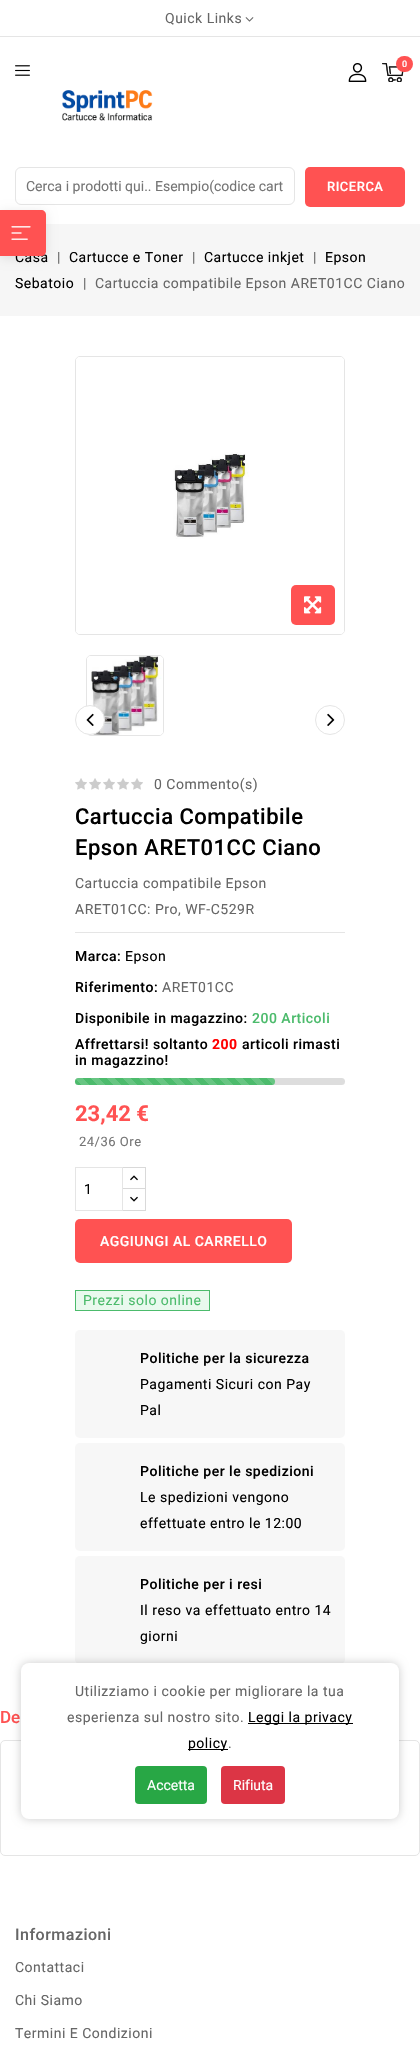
#include "include/core/SkBlurTypes.h"
#include "include/core/SkCanvas.h"
#include "include/core/SkData.h"
#include "include/core/SkFont.h"
#include "include/core/SkFontMgr.h"
#include "include/core/SkImage.h"
#include "include/core/SkMaskFilter.h"
#include "include/core/SkPaint.h"
#include "include/core/SkPathBuilder.h"
#include "include/core/SkTextBlob.h"
#include "include/effects/SkDashPathEffect.h"
#include "include/effects/SkGradientShader.h"
#include "include/utils/SkParsePath.h"

extern sk_sp<SkFontMgr> fontMgr;

void draw(SkCanvas* canvas) {
    SkPaint p;
    p.setAntiAlias(true);
    auto font = [&](const char* family, int weight, float size, bool italic = false) {
        SkFontStyle style(weight, SkFontStyle::kNormal_Width,
            italic ? SkFontStyle::kItalic_Slant : SkFontStyle::kUpright_Slant);
        SkFont result(fontMgr->matchFamilyStyle(family, style), size);
        result.setSubpixel(true);
        return result;
    };
    auto drawTracked = [&](const char* s, float x, float y, const SkFont& font, const SkPaint& ink, float letter, float word) {
        std::vector<SkGlyphID> glyphs(font.countText(s, strlen(s), SkTextEncoding::kUTF8));
        std::vector<float> xs(glyphs.size());
        font.textToGlyphs(s, strlen(s), SkTextEncoding::kUTF8, glyphs);
        font.getXPos(glyphs, xs, x);
        float extra = 0;
        for (size_t i = 0; i < glyphs.size(); i++) {
            xs[i] += extra;
            extra += letter + word * (glyphs[i] == font.unicharToGlyph(' '));
        }
        canvas->drawTextBlob(SkTextBlob::MakeFromPosHGlyphs(glyphs, xs, y, font), 0, 0, ink);
    };
    auto drawPhoto = [&](const char* path, float l, float t, float r, float b) {
        auto image = SkImages::DeferredFromEncodedData(SkData::MakeFromFileName(path));
        canvas->drawImageRect(image, SkRect::MakeLTRB(l, t, r, b), SkSamplingOptions());
    };
    canvas->clear(0xFFFFFFFF);
    p.setColor(0xFFE5E5E5);
    canvas->drawRect(SkRect::MakeLTRB(0, 36, 420, 37), p);
    auto font1 = font("Roboto", 400, 14);
    p.setColor(0xFF666666);
    drawTracked("Quick Links", 165, 23, font1, p, 0.5f, 0);
    drawPhoto("media/1.png", 245, 17, 254, 22);
    drawPhoto("media/2.png", 15, 65, 30, 76);
    drawPhoto("media/3.png", 348, 63, 367, 82);
    drawPhoto("media/4.png", 382, 63, 404, 82);
    p.setColor(0xFFFF5252);
    canvas->drawRoundRect(SkRect::MakeLTRB(396, 56, 413, 72), 8, 8, p);
    auto font2 = font("Roboto", 500, 9);
    p.setColor(0xFFFFFFFF);
    drawTracked("0", 402, 67, font2, p, 0.5f, 0);
    drawPhoto("media/5.png", 62, 90, 153, 121);
    p.setStyle(SkPaint::kStroke_Style);
    p.setStrokeWidth(1);
    p.setColor(0xFFE5E5E5);
    canvas->drawRoundRect(SkRect::MakeLTRB(15.5f, 167.5f, 294.5f, 204.5f), 5.5f, 5.5f, p);
    p.setStyle(SkPaint::kFill_Style);
    p.setColor(0xFF757575);
    canvas->drawString("Cerca i prodotti qui.. Esempio(codice cart", 26, 191, font1, p);
    p.setColor(0xFFFF5252);
    canvas->drawRoundRect(SkRect::MakeLTRB(305, 167, 405, 207), 5, 5, p);
    auto font3 = font("Roboto", 500, 13);
    p.setColor(0xFFFFFFFF);
    drawTracked("RICERCA", 327, 191, font3, p, 0.5f, 0);
    p.setColor(0xFFF6F6F6);
    canvas->drawRect(SkRect::MakeLTRB(0, 224, 420, 316), p);
    p.setColor(0x1A000000);
    p.setMaskFilter(SkMaskFilter::MakeBlur(kNormal_SkBlurStyle, 5.5f));
    canvas->drawRoundRect(SkRect::MakeLTRB(0, 212, 46, 258), 5, 5, p);
    p.setMaskFilter(nullptr);
    p.setColor(0xFF000000);
    drawTracked("Casa", 15, 262, font1, p, 0.5f, 0);
    p.setColor(0xFFFF5252);
    canvas->drawPath(SkPathBuilder().moveTo(0, 210).lineTo(41, 210).cubicTo(44, 210, 46, 212, 46, 215).lineTo(46, 251).cubicTo(46, 254, 44, 256, 41, 256).lineTo(0, 256).close().detach(), p);
    drawPhoto("media/6.png", 11, 226, 31, 240);
    p.setColor(0xFF666666);
    drawTracked("|", 57, 262, font1, p, 0.5f, 0);
    p.setColor(0xFF000000);
    drawTracked("Cartucce e Toner", 69, 262, font1, p, 0.5f, 0);
    p.setColor(0xFF666666);
    drawTracked("|", 192, 262, font1, p, 0.5f, 0);
    p.setColor(0xFF000000);
    drawTracked("Cartucce inkjet", 204, 262, font1, p, 0.5f, 0);
    p.setColor(0xFF666666);
    drawTracked("|", 313, 262, font1, p, 0.5f, 0);
    p.setColor(0xFF000000);
    drawTracked("Epson", 325, 262, font1, p, 0.5f, 0);
    drawTracked("Sebatoio", 15, 288, font1, p, 0.5f, 0);
    p.setColor(0xFF666666);
    drawTracked("|", 83, 288, font1, p, 0.5f, 0);
    drawTracked("Cartuccia compatibile Epson ARET01CC Ciano", 95, 288, font1, p, 0.5f, 0);
    p.setStyle(SkPaint::kStroke_Style);
    p.setColor(0xFFE5E5E5);
    canvas->drawRoundRect(SkRect::MakeLTRB(75.5f, 356.5f, 344.5f, 634.5f), 4.5f, 4.5f, p);
    drawPhoto("media/7.png", 76, 357, 344, 634);
    p.setStyle(SkPaint::kFill_Style);
    p.setColor(0xFFFF5252);
    canvas->drawRoundRect(SkRect::MakeLTRB(291, 585, 335, 625), 5, 5, p);
    drawPhoto("media/8.png", 304, 596, 322, 614);
    p.setStyle(SkPaint::kStroke_Style);
    p.setColor(0xFFE5E5E5);
    canvas->drawRoundRect(SkRect::MakeLTRB(86.5f, 655.5f, 163.5f, 735.5f), 4.5f, 4.5f, p);
    drawPhoto("media/9.png", 87, 656, 163, 735);
    p.setStyle(SkPaint::kFill_Style);
    p.setColor(0xFFFFFFFF);
    canvas->drawCircle(90, 720, 14.5f, p);
    p.setStyle(SkPaint::kStroke_Style);
    p.setColor(0xFFE5E5E5);
    canvas->drawCircle(90, 720, 14.5f, p);
    drawPhoto("media/10.png", 86, 713, 94, 726);
    canvas->drawCircle(330, 720, 14.5f, p);
    drawPhoto("media/11.png", 327, 713, 335, 726);
    drawPhoto("media/12.png", 75, 778, 87, 790);
    drawPhoto("media/12.png", 89, 778, 101, 790);
    drawPhoto("media/12.png", 103, 778, 115, 790);
    drawPhoto("media/12.png", 117, 778, 129, 790);
    drawPhoto("media/12.png", 131, 778, 143, 790);
    p.setStyle(SkPaint::kFill_Style);
    p.setColor(0xFF666666);
    drawTracked("0 Commento(s)", 154, 789, font1, p, 0.5f, 0);
    auto font4 = font("Roboto", 500, 22);
    p.setColor(0xFF000000);
    drawTracked("Cartuccia Compatibile", 75, 824, font4, p, 0.5f, 0);
    drawTracked("Epson ARET01CC Ciano", 75, 855, font4, p, 0.5f, 0);
    p.setColor(0xFF666666);
    drawTracked("Cartuccia compatibile Epson", 75, 888, font1, p, 0.5f, 0);
    drawTracked("ARET01CC: Pro, WF-C529R", 75, 914, font1, p, 0.5f, 0);
    p.setColor(0xFFE5E5E5);
    canvas->drawRect(SkRect::MakeLTRB(75, 932, 345, 933), p);
    auto font5 = font("Roboto", 500, 14);
    p.setColor(0xFF000000);
    drawTracked("Marca:", 75, 961, font5, p, 0.5f, 0);
    drawTracked("Epson", 125, 961, font1, p, 0.5f, 0);
    drawTracked("Riferimento:", 75, 992, font5, p, 0.5f, 0);
    p.setColor(0xFF666666);
    drawTracked("ARET01CC", 162, 992, font1, p, 0.5f, 0);
    p.setColor(0xFF000000);
    drawTracked("Disponibile in magazzino:", 75, 1023, font5, p, 0.5f, 0);
    p.setColor(0xFF4CBB6C);
    drawTracked("200 Articoli", 252, 1023, font5, p, 0.5f, 0);
    p.setColor(0xFF000000);
    drawTracked("Affrettarsi! soltanto", 75, 1049, font5, p, 0.5f, 0);
    auto font6 = font("Roboto", 700, 14);
    p.setColor(0xFFFF0000);
    drawTracked("200", 212, 1049, font6, p, 0.5f, 0);
    p.setColor(0xFF000000);
    drawTracked("articoli rimasti", 242, 1049, font5, p, 0.5f, 0);
    drawTracked("in magazzino!", 75, 1065, font5, p, 0.5f, 0);
    p.setColor(0xFFDDDDDD);
    canvas->drawRoundRect(SkRect::MakeLTRB(75, 1078, 345, 1085), 3.5f, 3.5f, p);
    p.setColor(0xFF4CBB6C);
    canvas->drawRoundRect(SkRect::MakeLTRB(75, 1078, 275, 1085), 3.5f, 3.5f, p);
    {
        const SkColor colors[] = {0x26FFFFFF, 0x00FFFFFF, 0x00FFFFFF, 0x26FFFFFF, 0x26FFFFFF, 0x00FFFFFF, 0x00000000};
        const float stops[] = {0.25f, 0.25f, 0.5f, 0.5f, 0.75f, 0.75f, 1};
        const SkPoint ends[] = {{75, 1094}, {91, 1078}};
        p.setShader(SkGradientShader::MakeLinear(ends, colors, stops, 7, SkTileMode::kClamp));
        p.setAlpha(255);
    }
    canvas->drawPath(SkPathBuilder().moveTo(78.5f, 1078).lineTo(91, 1078).lineTo(91, 1085).lineTo(78.5f, 1085).cubicTo(76.5f, 1085, 75, 1083.5f, 75, 1081.5f).cubicTo(75, 1079.5f, 76.5f, 1078, 78.5f, 1078).close().detach(), p);
    {
        const SkColor colors[] = {0xFF67C582, 0xFF4CBB6C, 0xFF4CBB6C, 0xFF67C582, 0xFF67C582, 0xFF4CBB6C, 0xFF4CBB6C};
        const float stops[] = {0.25f, 0.25f, 0.5f, 0.5f, 0.75f, 0.75f, 1};
        const SkPoint ends[] = {{91, 1094}, {107, 1078}};
        p.setShader(SkGradientShader::MakeLinear(ends, colors, stops, 7, SkTileMode::kClamp));
        p.setAlpha(255);
    }
    canvas->drawRect(SkRect::MakeLTRB(91, 1078, 107, 1085), p);
    {
        const SkColor colors[] = {0xFF67C582, 0xFF4CBB6C, 0xFF4CBB6C, 0xFF67C582, 0xFF67C582, 0xFF4CBB6C, 0xFF4CBB6C};
        const float stops[] = {0.25f, 0.25f, 0.5f, 0.5f, 0.75f, 0.75f, 1};
        const SkPoint ends[] = {{107, 1094}, {123, 1078}};
        p.setShader(SkGradientShader::MakeLinear(ends, colors, stops, 7, SkTileMode::kClamp));
        p.setAlpha(255);
    }
    canvas->drawRect(SkRect::MakeLTRB(107, 1078, 123, 1085), p);
    {
        const SkColor colors[] = {0xFF67C582, 0xFF4CBB6C, 0xFF4CBB6C, 0xFF67C582, 0xFF67C582, 0xFF4CBB6C, 0xFF4CBB6C};
        const float stops[] = {0.25f, 0.25f, 0.5f, 0.5f, 0.75f, 0.75f, 1};
        const SkPoint ends[] = {{123, 1094}, {139, 1078}};
        p.setShader(SkGradientShader::MakeLinear(ends, colors, stops, 7, SkTileMode::kClamp));
        p.setAlpha(255);
    }
    canvas->drawRect(SkRect::MakeLTRB(123, 1078, 139, 1085), p);
    {
        const SkColor colors[] = {0xFF67C582, 0xFF4CBB6C, 0xFF4CBB6C, 0xFF67C582, 0xFF67C582, 0xFF4CBB6C, 0xFF4CBB6C};
        const float stops[] = {0.25f, 0.25f, 0.5f, 0.5f, 0.75f, 0.75f, 1};
        const SkPoint ends[] = {{139, 1094}, {155, 1078}};
        p.setShader(SkGradientShader::MakeLinear(ends, colors, stops, 7, SkTileMode::kClamp));
        p.setAlpha(255);
    }
    canvas->drawRect(SkRect::MakeLTRB(139, 1078, 155, 1085), p);
    {
        const SkColor colors[] = {0xFF67C582, 0xFF4CBB6C, 0xFF4CBB6C, 0xFF67C582, 0xFF67C582, 0xFF4CBB6C, 0xFF4CBB6C};
        const float stops[] = {0.25f, 0.25f, 0.5f, 0.5f, 0.75f, 0.75f, 1};
        const SkPoint ends[] = {{155, 1094}, {171, 1078}};
        p.setShader(SkGradientShader::MakeLinear(ends, colors, stops, 7, SkTileMode::kClamp));
        p.setAlpha(255);
    }
    canvas->drawRect(SkRect::MakeLTRB(155, 1078, 171, 1085), p);
    {
        const SkColor colors[] = {0xFF67C582, 0xFF4CBB6C, 0xFF4CBB6C, 0xFF67C582, 0xFF67C582, 0xFF4CBB6C, 0xFF4CBB6C};
        const float stops[] = {0.25f, 0.25f, 0.5f, 0.5f, 0.75f, 0.75f, 1};
        const SkPoint ends[] = {{171, 1094}, {187, 1078}};
        p.setShader(SkGradientShader::MakeLinear(ends, colors, stops, 7, SkTileMode::kClamp));
        p.setAlpha(255);
    }
    canvas->drawRect(SkRect::MakeLTRB(171, 1078, 187, 1085), p);
    {
        const SkColor colors[] = {0xFF67C582, 0xFF4CBB6C, 0xFF4CBB6C, 0xFF67C582, 0xFF67C582, 0xFF4CBB6C, 0xFF4CBB6C};
        const float stops[] = {0.25f, 0.25f, 0.5f, 0.5f, 0.75f, 0.75f, 1};
        const SkPoint ends[] = {{187, 1094}, {203, 1078}};
        p.setShader(SkGradientShader::MakeLinear(ends, colors, stops, 7, SkTileMode::kClamp));
        p.setAlpha(255);
    }
    canvas->drawRect(SkRect::MakeLTRB(187, 1078, 203, 1085), p);
    {
        const SkColor colors[] = {0xFF67C582, 0xFF4CBB6C, 0xFF4CBB6C, 0xFF67C582, 0xFF67C582, 0xFF4CBB6C, 0xFF4CBB6C};
        const float stops[] = {0.25f, 0.25f, 0.5f, 0.5f, 0.75f, 0.75f, 1};
        const SkPoint ends[] = {{203, 1094}, {219, 1078}};
        p.setShader(SkGradientShader::MakeLinear(ends, colors, stops, 7, SkTileMode::kClamp));
        p.setAlpha(255);
    }
    canvas->drawRect(SkRect::MakeLTRB(203, 1078, 219, 1085), p);
    {
        const SkColor colors[] = {0xFF67C582, 0xFF4CBB6C, 0xFF4CBB6C, 0xFF67C582, 0xFF67C582, 0xFF4CBB6C, 0xFF4CBB6C};
        const float stops[] = {0.25f, 0.25f, 0.5f, 0.5f, 0.75f, 0.75f, 1};
        const SkPoint ends[] = {{219, 1094}, {235, 1078}};
        p.setShader(SkGradientShader::MakeLinear(ends, colors, stops, 7, SkTileMode::kClamp));
        p.setAlpha(255);
    }
    canvas->drawRect(SkRect::MakeLTRB(219, 1078, 235, 1085), p);
    {
        const SkColor colors[] = {0xFF67C582, 0xFF4CBB6C, 0xFF4CBB6C, 0xFF67C582, 0xFF67C582, 0xFF4CBB6C, 0xFF4CBB6C};
        const float stops[] = {0.25f, 0.25f, 0.5f, 0.5f, 0.75f, 0.75f, 1};
        const SkPoint ends[] = {{235, 1094}, {251, 1078}};
        p.setShader(SkGradientShader::MakeLinear(ends, colors, stops, 7, SkTileMode::kClamp));
        p.setAlpha(255);
    }
    canvas->drawRect(SkRect::MakeLTRB(235, 1078, 251, 1085), p);
    {
        const SkColor colors[] = {0xFF67C582, 0xFF4CBB6C, 0xFF4CBB6C, 0xFF67C582, 0xFF67C582, 0xFF4CBB6C, 0xFF4CBB6C};
        const float stops[] = {0.25f, 0.25f, 0.5f, 0.5f, 0.75f, 0.75f, 1};
        const SkPoint ends[] = {{251, 1094}, {267, 1078}};
        p.setShader(SkGradientShader::MakeLinear(ends, colors, stops, 7, SkTileMode::kClamp));
        p.setAlpha(255);
    }
    canvas->drawRect(SkRect::MakeLTRB(251, 1078, 267, 1085), p);
    {
        const SkColor colors[] = {0x26FFFFFF, 0x00FFFFFF, 0x00FFFFFF, 0x26FFFFFF, 0x26FFFFFF, 0x00FFFFFF, 0x00000000};
        const float stops[] = {0.25f, 0.25f, 0.5f, 0.5f, 0.75f, 0.75f, 1};
        const SkPoint ends[] = {{267, 1094}, {283, 1078}};
        p.setShader(SkGradientShader::MakeLinear(ends, colors, stops, 7, SkTileMode::kClamp));
        p.setAlpha(255);
    }
    canvas->drawPath(SkPathBuilder().moveTo(267, 1078).lineTo(271.5f, 1078).cubicTo(273.5f, 1078, 275, 1079.5f, 275, 1081.5f).cubicTo(275, 1083.5f, 273.5f, 1085, 271.5f, 1085).lineTo(267, 1085).close().detach(), p);
    auto font7 = font("Roboto", 700, 22);
    p.setShader(nullptr);
    p.setColor(0xFFFF5252);
    canvas->drawString("23,42 €", 75, 1121, font7, p);
    auto font8 = font("Roboto", 400, 13);
    p.setColor(0xFF757575);
    drawTracked("24/36 Ore", 79, 1146, font8, p, 0.5f, 0);
    p.setStyle(SkPaint::kStroke_Style);
    p.setColor(0xFFD9D9D9);
    canvas->drawRect(SkRect::MakeLTRB(122.5f, 1167.5f, 145.5f, 1189.5f), p);
    p.setStyle(SkPaint::kFill_Style);
    p.setColor(0xFFFFFFFF);
    canvas->drawRect(SkRect::MakeLTRB(123, 1189, 145, 1190), p);
    p.setStyle(SkPaint::kStroke_Style);
    p.setColor(0xFFD9D9D9);
    canvas->drawRect(SkRect::MakeLTRB(122.5f, 1188.5f, 145.5f, 1210.5f), p);
    p.setColor(0xFFE5E5E5);
    canvas->drawRect(SkRect::MakeLTRB(75.5f, 1167.5f, 122.5f, 1210.5f), p);
    p.setStyle(SkPaint::kFill_Style);
    p.setColor(0xFF000000);
    canvas->drawString("1", 84, 1194, font1, p);
    drawPhoto("media/13.png", 130, 1175, 138, 1181);
    drawPhoto("media/14.png", 130, 1196, 138, 1202);
    p.setColor(0xFFFF5252);
    canvas->drawRoundRect(SkRect::MakeLTRB(75, 1219, 292, 1263), 5, 5, p);
    p.setColor(0xFFFFFFFF);
    drawTracked("AGGIUNGI AL CARRELLO", 100, 1246, font5, p, 0.5f, 0);
    p.setColor(0xFFE9F9EE);
    canvas->drawRect(SkRect::MakeLTRB(75.5f, 1290.5f, 209.5f, 1310.5f), p);
    p.setStyle(SkPaint::kStroke_Style);
    p.setColor(0xFF4CBB6C);
    canvas->drawRect(SkRect::MakeLTRB(75.5f, 1290.5f, 209.5f, 1310.5f), p);
    p.setStyle(SkPaint::kFill_Style);
    drawTracked("Prezzi solo online", 83, 1305, font1, p, 0.5f, 0);
    p.setColor(0xFFF7F7F7);
    canvas->drawRoundRect(SkRect::MakeLTRB(75, 1330, 345, 1438), 5, 5, p);
    p.setColor(0xFF000000);
    drawTracked("Politiche per la sicurezza", 140, 1363, font5, p, 0.5f, 0);
    drawTracked("Pagamenti Sicuri con Pay", 140, 1389, font1, p, 0.5f, 0);
    drawTracked("Pal", 140, 1415, font1, p, 0.5f, 0);
    p.setColor(0xFFF7F7F7);
    canvas->drawRoundRect(SkRect::MakeLTRB(75, 1443, 345, 1551), 5, 5, p);
    p.setColor(0xFF000000);
    drawTracked("Politiche per le spedizioni", 140, 1476, font5, p, 0.5f, 0);
    drawTracked("Le spedizioni vengono", 140, 1502, font1, p, 0.5f, 0);
    drawTracked("effettuate entro le 12:00", 140, 1528, font1, p, 0.5f, 0);
    p.setColor(0xFFF7F7F7);
    canvas->drawRoundRect(SkRect::MakeLTRB(75, 1556, 345, 1664), 5, 5, p);
    p.setColor(0xFF000000);
    drawTracked("Politiche per i resi", 140, 1589, font5, p, 0.5f, 0);
    drawTracked("Il reso va effettuato entro 14", 140, 1615, font1, p, 0.5f, 0);
    drawTracked("giorni", 140, 1641, font1, p, 0.5f, 0);
    auto font9 = font("Roboto", 500, 17);
    p.setColor(0xFFFF5252);
    canvas->drawString("De", 0, 1723, font9, p);
    p.setStyle(SkPaint::kStroke_Style);
    p.setColor(0xFFE5E5E5);
    canvas->drawRoundRect(SkRect::MakeLTRB(0.5f, 1740.5f, 419.5f, 1855.5f), 4.5f, 4.5f, p);
    p.setStyle(SkPaint::kFill_Style);
    p.setColor(0x33000000);
    p.setMaskFilter(SkMaskFilter::MakeBlur(kNormal_SkBlurStyle, 5));
    canvas->drawRoundRect(SkRect::MakeLTRB(21, 1663, 399, 1819), 8, 8, p);
    p.setMaskFilter(nullptr);
    p.setColor(0xFFFFFFFF);
    canvas->drawRoundRect(SkRect::MakeLTRB(21, 1663, 399, 1819), 8, 8, p);
    p.setColor(0xFF666666);
    drawTracked("Utilizziamo i cookie per migliorare la tua", 75, 1696, font1, p, 0.5f, 0);
    drawTracked("esperienza sul nostro sito.", 67, 1722, font1, p, 0.5f, 0);
    p.setColor(0xFF000000);
    canvas->drawRect(SkRect::MakeLTRB(248, 1723, 353, 1724), p);
    drawTracked("Leggi la privacy", 248, 1722, font1, p, 0.5f, 0);
    canvas->drawRect(SkRect::MakeLTRB(188, 1749, 228, 1750), p);
    drawTracked("policy", 188, 1748, font1, p, 0.5f, 0);
    p.setColor(0xFF666666);
    drawTracked(".", 228, 1748, font1, p, 0.5f, 0);
    p.setColor(0xFF28A745);
    canvas->drawRoundRect(SkRect::MakeLTRB(135, 1766, 207, 1804), 4, 4, p);
    p.setColor(0xFFFFFFFF);
    canvas->drawString("Accetta", 147, 1790, font1, p);
    p.setColor(0xFFDC3545);
    canvas->drawRoundRect(SkRect::MakeLTRB(221, 1766, 285, 1804), 4, 4, p);
    p.setColor(0xFFFFFFFF);
    canvas->drawString("Rifiuta", 233, 1790, font1, p);
    auto font10 = font("Roboto", 500, 16);
    p.setColor(0xFF666666);
    drawTracked("Informazioni", 15, 1940, font10, p, 0.5f, 0);
    {
        const struct { const char* s; float x, y; } items[] = {
            {"Contattaci", 15, 1972},
            {"Chi Siamo", 15, 2005},
            {"Termini E Condizioni", 15, 2038},
        };
        for (auto [s, x, y] : items) {
            drawTracked(s, x, y, font1, p, 0.5f, 0);
        }
    }
}
